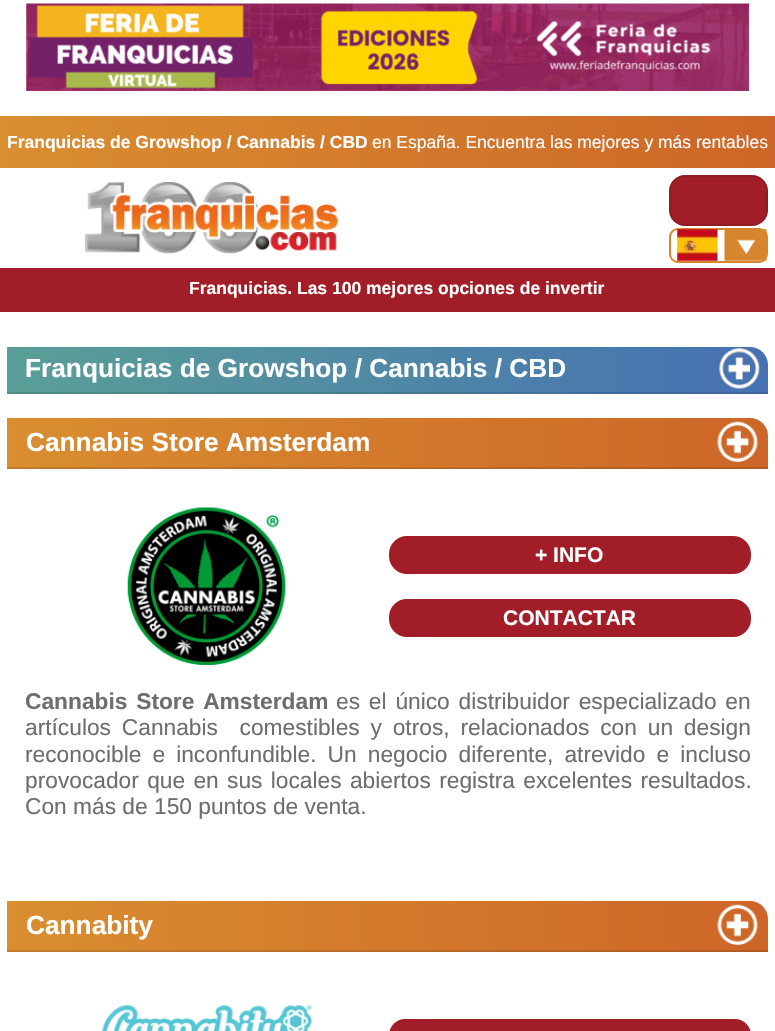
#include "include/core/SkBlurTypes.h"
#include "include/core/SkCanvas.h"
#include "include/core/SkData.h"
#include "include/core/SkFont.h"
#include "include/core/SkFontMgr.h"
#include "include/core/SkImage.h"
#include "include/core/SkMaskFilter.h"
#include "include/core/SkPaint.h"
#include "include/core/SkPathBuilder.h"
#include "include/core/SkTextBlob.h"
#include "include/effects/SkDashPathEffect.h"
#include "include/effects/SkGradientShader.h"
#include "include/utils/SkParsePath.h"

extern sk_sp<SkFontMgr> fontMgr;

void draw(SkCanvas* canvas) {
    SkPaint p;
    p.setAntiAlias(true);
    auto font = [&](const char* family, int weight, float size, bool italic = false) {
        SkFontStyle style(weight, SkFontStyle::kNormal_Width,
            italic ? SkFontStyle::kItalic_Slant : SkFontStyle::kUpright_Slant);
        SkFont result(fontMgr->matchFamilyStyle(family, style), size);
        result.setSubpixel(true);
        return result;
    };
    auto drawTracked = [&](const char* s, float x, float y, const SkFont& font, const SkPaint& ink, float letter, float word) {
        std::vector<SkGlyphID> glyphs(font.countText(s, strlen(s), SkTextEncoding::kUTF8));
        std::vector<float> xs(glyphs.size());
        font.textToGlyphs(s, strlen(s), SkTextEncoding::kUTF8, glyphs);
        font.getXPos(glyphs, xs, x);
        float extra = 0;
        for (size_t i = 0; i < glyphs.size(); i++) {
            xs[i] += extra;
            extra += letter + word * (glyphs[i] == font.unicharToGlyph(' '));
        }
        canvas->drawTextBlob(SkTextBlob::MakeFromPosHGlyphs(glyphs, xs, y, font), 0, 0, ink);
    };
    auto drawPhoto = [&](const char* path, float l, float t, float r, float b) {
        auto image = SkImages::DeferredFromEncodedData(SkData::MakeFromFileName(path));
        canvas->drawImageRect(image, SkRect::MakeLTRB(l, t, r, b), SkSamplingOptions());
    };
    canvas->clear(0xFFFFFFFF);
    drawPhoto("media/1.png", 26, 3, 749, 91);
    drawPhoto("media/2.png", 85, 182, 339, 254);
    p.setColor(0xFFA11E28);
    canvas->drawRoundRect(SkRect::MakeLTRB(669, 175, 768, 226), 16, 16, p);
    p.setStyle(SkPaint::kStroke_Style);
    p.setStrokeWidth(2);
    p.setColor(0x1A000000);
    canvas->drawRoundRect(SkRect::MakeLTRB(670, 176, 767, 225), 15, 15, p);
    p.setColor(0xFFD6862E);
    canvas->drawRoundRect(SkRect::MakeLTRB(670, 229, 767, 262), 8, 8, p);
    drawPhoto("media/3.png", 677, 229, 718, 261);
    drawPhoto("media/4.png", 724, 229, 767, 261);
    p.setStyle(SkPaint::kFill_Style);
    {
        const SkColor colors[] = {0xFFD98E30, 0xFFCD6628};
        const float stops[] = {0, 1};
        const SkPoint ends[] = {{0, 142}, {775, 142}};
        p.setShader(SkGradientShader::MakeLinear(ends, colors, stops, 2, SkTileMode::kClamp));
        p.setAlpha(255);
    }
    canvas->drawRect(SkRect::MakeLTRB(0, 116, 775, 168), p);
    auto font1 = font("Liberation Sans", 700, 17.5f);
    p.setShader(nullptr);
    p.setColor(0xFFFFFFFF);
    canvas->drawString("Franquicias de Growshop / Cannabis / CBD", 7, 148, font1, p);
    auto font2 = font("Liberation Sans", 400, 17.5f);
    canvas->drawString("en España. Encuentra las mejores y más rentables", 372, 148, font2, p);
    p.setColor(0xFFA11E28);
    canvas->drawRect(SkRect::MakeLTRB(0, 268, 775, 312), p);
    p.setColor(0xFFFFFFFF);
    canvas->drawString("Franquicias. Las 100 mejores opciones de invertir", 189, 294, font1, p);
    {
        const SkColor colors[] = {0xFF4571B3, 0xFF5A9F97};
        const float stops[] = {0, 1};
        const SkPoint ends[] = {{768, 369}, {7, 369}};
        p.setShader(SkGradientShader::MakeLinear(ends, colors, stops, 2, SkTileMode::kClamp));
        p.setAlpha(255);
    }
    canvas->drawPath(SkPathBuilder().moveTo(7, 347).lineTo(750, 347).cubicTo(760, 347, 768, 355, 768, 365).lineTo(768, 394).lineTo(7, 394).close().detach(), p);
    {
        const SkColor colors[] = {0xFF3D639E, 0xFF4F8C85};
        const float stops[] = {0, 1};
        const SkPoint ends[] = {{768, 369}, {7, 369}};
        p.setShader(SkGradientShader::MakeLinear(ends, colors, stops, 2, SkTileMode::kClamp));
        p.setAlpha(255);
    }
    canvas->drawRect(SkRect::MakeLTRB(7, 392, 768, 394), p);
    drawPhoto("media/5.png", 719, 348, 760, 389);
    auto font3 = font("Liberation Sans", 700, 26.25f);
    p.setShader(nullptr);
    p.setColor(0xFFFFFFFF);
    canvas->drawString("Franquicias de Growshop / Cannabis / CBD", 25, 377, font3, p);
    {
        const SkColor colors[] = {0xFFD98E30, 0xFFCD6628};
        const float stops[] = {0, 1};
        const SkPoint ends[] = {{7, 443}, {768, 443}};
        p.setShader(SkGradientShader::MakeLinear(ends, colors, stops, 2, SkTileMode::kClamp));
        p.setAlpha(255);
    }
    canvas->drawPath(SkPathBuilder().moveTo(7, 418).lineTo(750, 418).cubicTo(760, 418, 768, 426, 768, 436).lineTo(768, 469).lineTo(7, 469).close().detach(), p);
    {
        const SkColor colors[] = {0xFFBF7D2A, 0xFFB45A23};
        const float stops[] = {0, 1};
        const SkPoint ends[] = {{7, 443}, {768, 443}};
        p.setShader(SkGradientShader::MakeLinear(ends, colors, stops, 2, SkTileMode::kClamp));
        p.setAlpha(255);
    }
    canvas->drawRect(SkRect::MakeLTRB(7, 467, 768, 469), p);
    drawPhoto("media/6.png", 717, 421, 758, 462);
    p.setShader(nullptr);
    p.setColor(0xFFFFFFFF);
    canvas->drawString("Cannabis Store Amsterdam", 26, 451, font3, p);
    drawPhoto("media/7.png", 127, 507, 286, 665);
    p.setColor(0xFFA11E28);
    canvas->drawRoundRect(SkRect::MakeLTRB(390, 537, 750, 573), 17, 17, p);
    p.setStyle(SkPaint::kStroke_Style);
    canvas->drawRoundRect(SkRect::MakeLTRB(390, 537, 750, 573), 17, 17, p);
    auto font4 = font("Liberation Sans", 700, 21);
    p.setStyle(SkPaint::kFill_Style);
    p.setColor(0xFFFFFFFF);
    canvas->drawString("+ INFO", 535, 562, font4, p);
    p.setColor(0xFFA11E28);
    canvas->drawRoundRect(SkRect::MakeLTRB(390, 600, 750, 636), 17, 17, p);
    p.setStyle(SkPaint::kStroke_Style);
    canvas->drawRoundRect(SkRect::MakeLTRB(390, 600, 750, 636), 17, 17, p);
    p.setStyle(SkPaint::kFill_Style);
    p.setColor(0xFFFFFFFF);
    canvas->drawString("CONTACTAR", 503, 625, font4, p);
    auto font5 = font("Liberation Sans", 700, 22.75f);
    p.setColor(0xFF6F6E6E);
    drawTracked("Cannabis Store Amsterdam", 25, 709, font5, p, 0, 2.5f);
    auto font6 = font("Liberation Sans", 400, 22.75f);
    drawTracked("es el único distribuidor especializado en", 336, 709, font6, p, 0, 2.5f);
    drawTracked("artículos Cannabis  comestibles y otros, relacionados con un design", 25, 735, font6, p, 0, 4.5f);
    drawTracked("reconocible e inconfundible. Un negocio diferente, atrevido e incluso", 25, 762, font6, p, 0, 4.75f);
    drawTracked("provocador que en sus locales abiertos registra excelentes resultados.", 25, 788, font6, p, 0, 2);
    canvas->drawString("Con más de 150 puntos de venta.", 25, 814, font6, p);
    {
        const SkColor colors[] = {0xFFD98E30, 0xFFCD6628};
        const float stops[] = {0, 1};
        const SkPoint ends[] = {{7, 926}, {768, 926}};
        p.setShader(SkGradientShader::MakeLinear(ends, colors, stops, 2, SkTileMode::kClamp));
        p.setAlpha(255);
    }
    canvas->drawPath(SkPathBuilder().moveTo(7, 901).lineTo(750, 901).cubicTo(760, 901, 768, 909, 768, 919).lineTo(768, 952).lineTo(7, 952).close().detach(), p);
    {
        const SkColor colors[] = {0xFFBF7D2A, 0xFFB45A23};
        const float stops[] = {0, 1};
        const SkPoint ends[] = {{7, 926}, {768, 926}};
        p.setShader(SkGradientShader::MakeLinear(ends, colors, stops, 2, SkTileMode::kClamp));
        p.setAlpha(255);
    }
    canvas->drawRect(SkRect::MakeLTRB(7, 950, 768, 952), p);
    drawPhoto("media/6.png", 717, 904, 758, 945);
    p.setShader(nullptr);
    p.setColor(0xFFFFFFFF);
    canvas->drawString("Cannabity", 26, 934, font3, p);
    drawPhoto("media/8.png", 101, 1005, 312, 1031);
    p.setColor(0xFFA11E28);
    canvas->drawRoundRect(SkRect::MakeLTRB(390, 1020, 750, 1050), 17, 17, p);
    p.setStyle(SkPaint::kStroke_Style);
    canvas->drawRoundRect(SkRect::MakeLTRB(390, 1020, 750, 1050), 17, 17, p);
}
